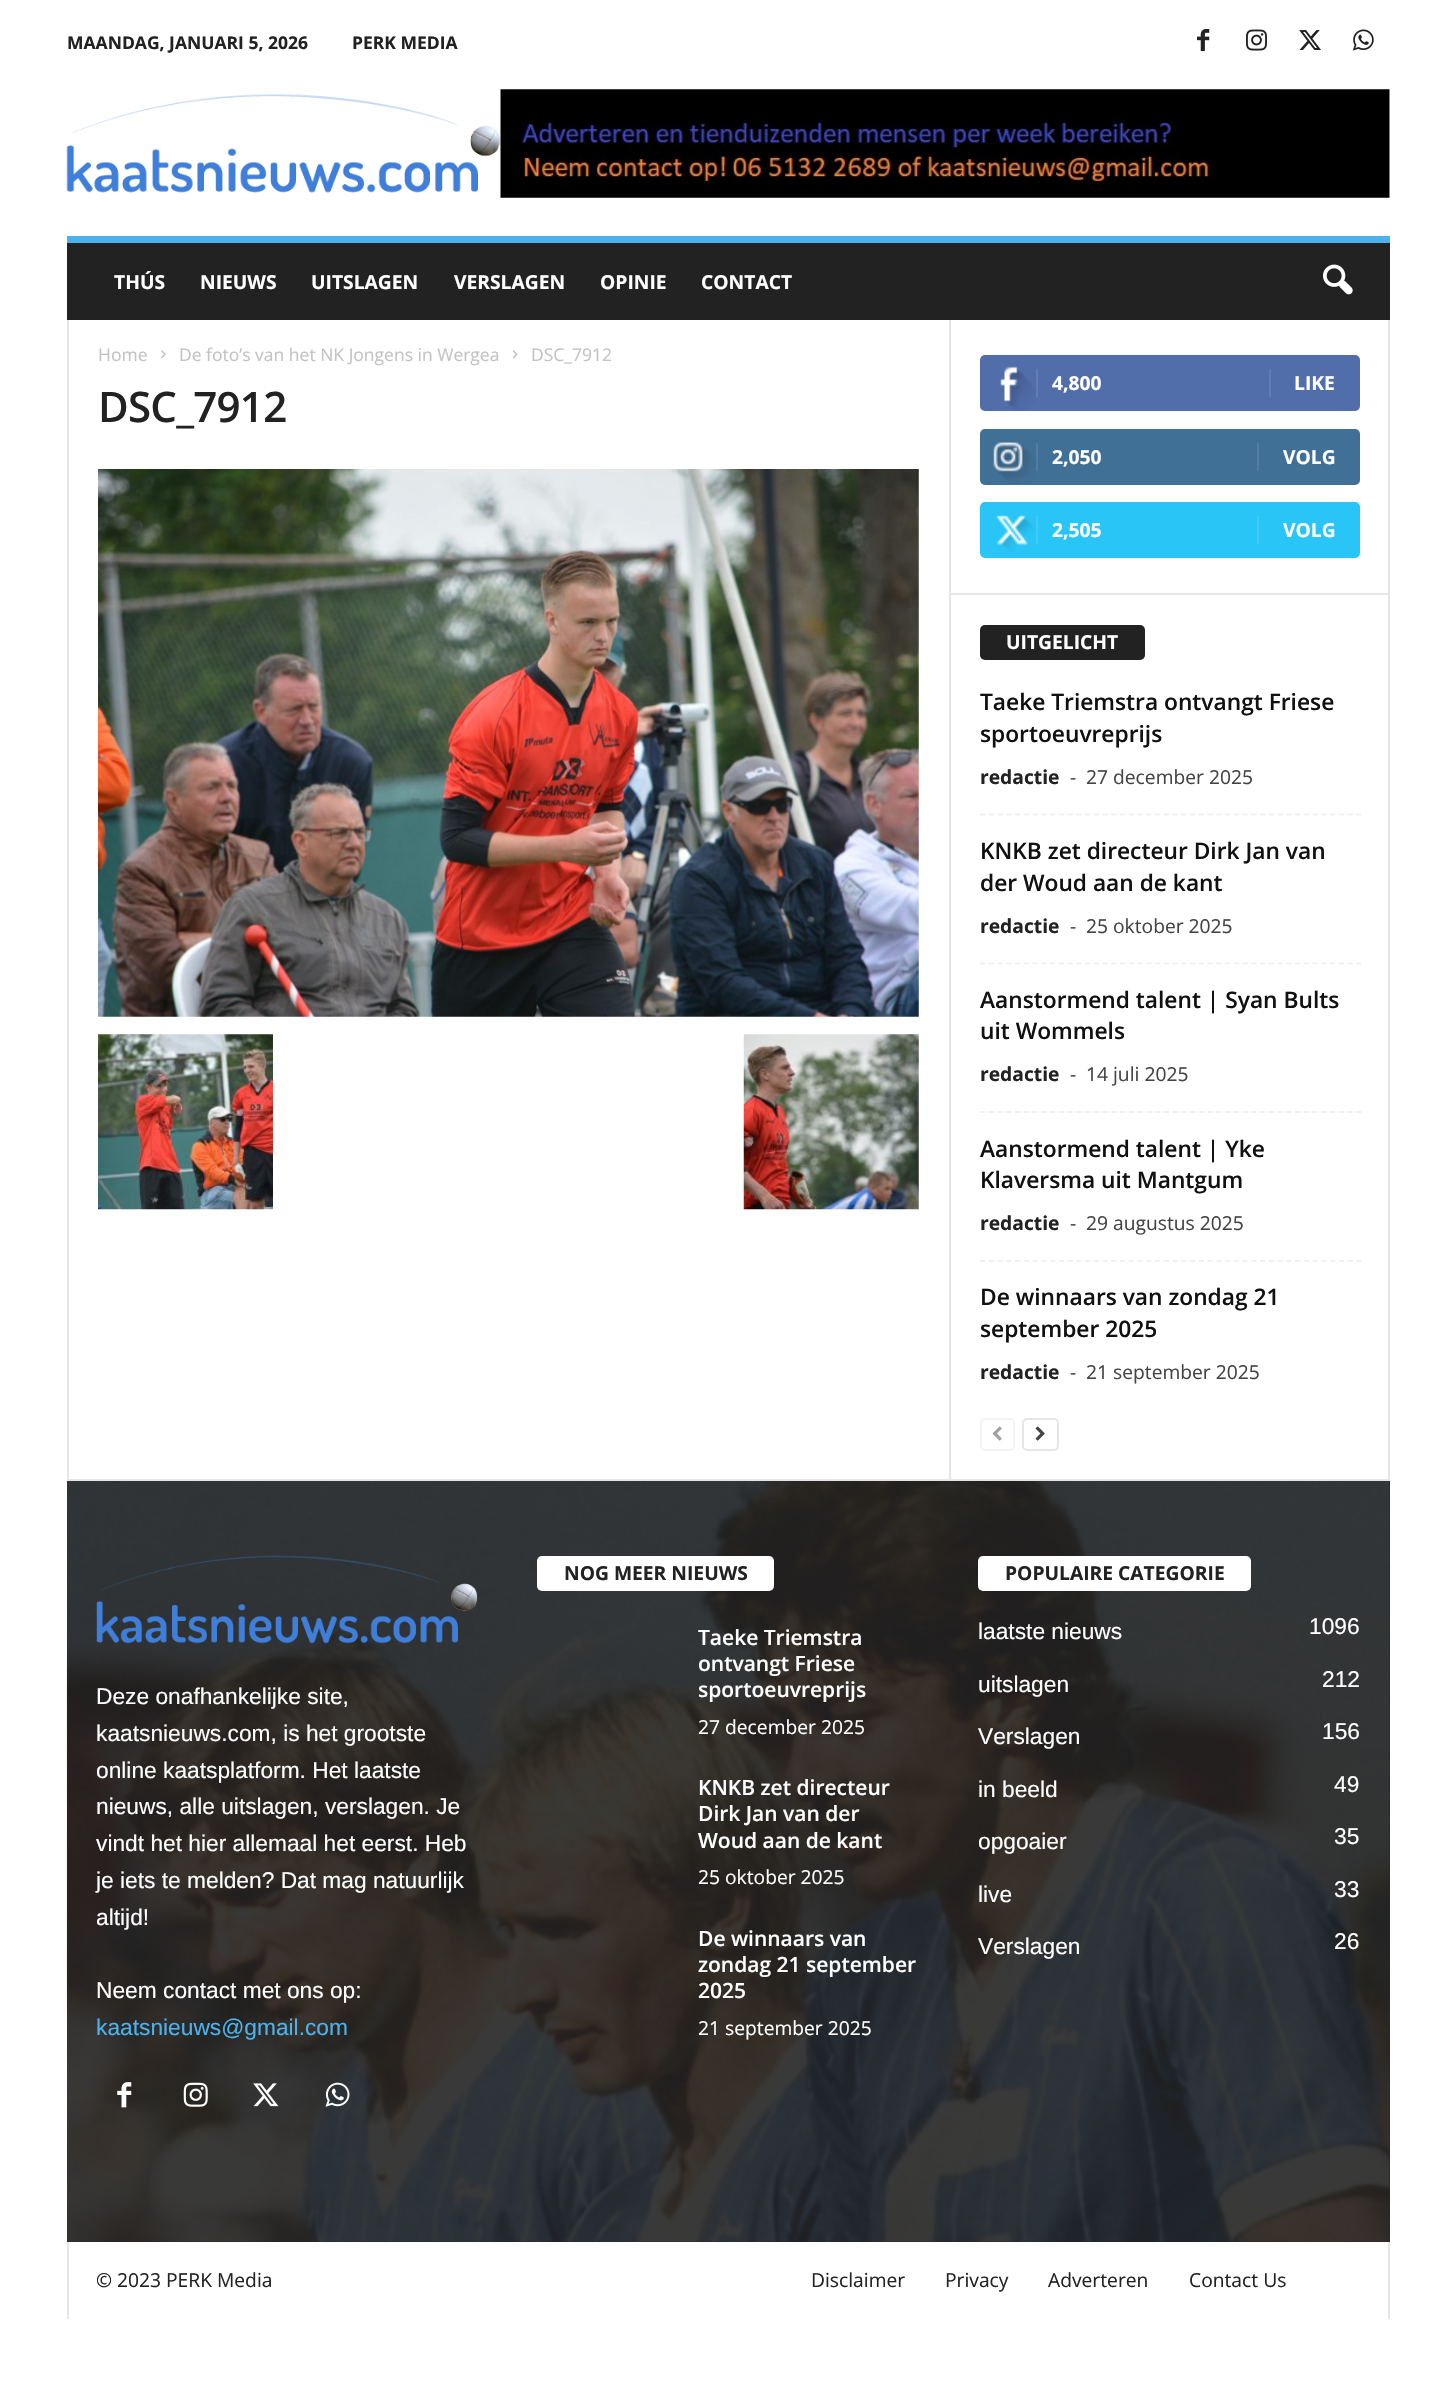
#include "include/core/SkBlurTypes.h"
#include "include/core/SkCanvas.h"
#include "include/core/SkData.h"
#include "include/core/SkFont.h"
#include "include/core/SkFontMgr.h"
#include "include/core/SkImage.h"
#include "include/core/SkMaskFilter.h"
#include "include/core/SkPaint.h"
#include "include/core/SkPathBuilder.h"
#include "include/core/SkTextBlob.h"
#include "include/effects/SkDashPathEffect.h"
#include "include/effects/SkGradientShader.h"
#include "include/utils/SkParsePath.h"

extern sk_sp<SkFontMgr> fontMgr;

void draw(SkCanvas* canvas) {
    SkPaint p;
    p.setAntiAlias(true);
    auto font = [&](const char* family, int weight, float size, bool italic = false) {
        SkFontStyle style(weight, SkFontStyle::kNormal_Width,
            italic ? SkFontStyle::kItalic_Slant : SkFontStyle::kUpright_Slant);
        SkFont result(fontMgr->matchFamilyStyle(family, style), size);
        result.setSubpixel(true);
        return result;
    };
    auto drawTracked = [&](const char* s, float x, float y, const SkFont& font, const SkPaint& ink, float letter, float word) {
        std::vector<SkGlyphID> glyphs(font.countText(s, strlen(s), SkTextEncoding::kUTF8));
        std::vector<float> xs(glyphs.size());
        font.textToGlyphs(s, strlen(s), SkTextEncoding::kUTF8, glyphs);
        font.getXPos(glyphs, xs, x);
        float extra = 0;
        for (size_t i = 0; i < glyphs.size(); i++) {
            xs[i] += extra;
            extra += letter + word * (glyphs[i] == font.unicharToGlyph(' '));
        }
        canvas->drawTextBlob(SkTextBlob::MakeFromPosHGlyphs(glyphs, xs, y, font), 0, 0, ink);
    };
    auto drawPhoto = [&](const char* path, float l, float t, float r, float b) {
        auto image = SkImages::DeferredFromEncodedData(SkData::MakeFromFileName(path));
        canvas->drawImageRect(image, SkRect::MakeLTRB(l, t, r, b), SkSamplingOptions());
    };
    canvas->clear(0xFFFFFFFF);
    auto font1 = font("Open Sans", 700, 17.5f);
    p.setColor(0xFF222222);
    canvas->drawString("MAANDAG, JANUARI 5, 2026", 67, 49, font1, p);
    canvas->drawString("PERK MEDIA", 352, 49, font1, p);
    drawPhoto("media/1.png", 1197, 29, 1210, 52);
    drawPhoto("media/2.png", 1246, 29, 1267, 51);
    drawPhoto("media/3.png", 1299, 30, 1321, 50);
    drawPhoto("media/4.png", 1352, 29, 1374, 51);
    drawPhoto("media/5.png", 66, 94, 500, 193);
    drawPhoto("media/6.png", 500, 89, 1390, 198);
    canvas->drawRect(SkRect::MakeLTRB(67, 243, 1390, 320), p);
    p.setColor(0xFF4DB2EC);
    canvas->drawRect(SkRect::MakeLTRB(67, 236, 1390, 243), p);
    auto font2 = font("Open Sans", 700, 19.25f);
    p.setColor(0xFFFFFFFF);
    {
        const struct { const char* s; float x, y; } items[] = {
            {"THÚS", 114, 289},
            {"NIEUWS", 200, 289},
            {"UITSLAGEN", 311, 289},
            {"VERSLAGEN", 454, 289},
            {"OPINIE", 600, 289},
            {"CONTACT", 701, 289},
        };
        for (auto [s, x, y] : items) {
            canvas->drawString(s, x, y, font2, p);
        }
    }
    drawPhoto("media/7.png", 1323, 264, 1353, 295);
    p.setColor(0xFF222222);
    canvas->drawRect(SkRect::MakeLTRB(67, 1481, 1390, 2242), p);
    drawPhoto("media/18.png", 66, 1480, 1390, 2242);
    p.setColor(0xFFE6E6E6);
    canvas->drawRect(SkRect::MakeLTRB(67, 1479, 1390, 1481), p);
    canvas->drawRect(SkRect::MakeLTRB(67, 320, 69, 1479), p);
    auto font3 = font("Open Sans", 400, 17.5f);
    p.setColor(0xFFC3C3C3);
    canvas->drawString("Home", 98, 361, font3, p);
    drawPhoto("media/8.png", 161, 350, 166, 359);
    canvas->drawString("De foto’s van het NK Jongens in Wergea", 179, 361, font3, p);
    drawPhoto("media/9.png", 512, 350, 518, 359);
    canvas->drawString("DSC_7912", 531, 361, font3, p);
    auto font4 = font("Open Sans", 600, 42);
    p.setColor(0xFF222222);
    drawTracked("DSC_7912", 98, 422, font4, p, -0.75f, 0);
    drawPhoto("media/10.png", 98, 469, 919, 1017);
    drawPhoto("media/11.png", 98, 1034, 273, 1210);
    drawPhoto("media/12.png", 743, 1034, 919, 1210);
    p.setColor(0xFFE6E6E6);
    canvas->drawRect(SkRect::MakeLTRB(949, 320, 951, 1479), p);
    p.setColor(0xFF516EAB);
    canvas->drawRoundRect(SkRect::MakeLTRB(980, 355, 1360, 411), 5, 5, p);
    drawPhoto("media/13.png", 1000, 366, 1036, 411);
    p.setColor(0xFF627DB3);
    canvas->drawRect(SkRect::MakeLTRB(1036, 369, 1038, 397), p);
    p.setColor(0xFFFFFFFF);
    canvas->drawString("4,800", 1052, 390, font2, p);
    p.setColor(0xFF627DB3);
    canvas->drawRect(SkRect::MakeLTRB(1269, 369, 1271, 397), p);
    p.setColor(0xFFFFFFFF);
    canvas->drawString("LIKE", 1294, 390, font2, p);
    p.setColor(0xFF417096);
    canvas->drawRoundRect(SkRect::MakeLTRB(980, 429, 1360, 485), 5, 5, p);
    drawPhoto("media/14.png", 993, 442, 1036, 484);
    p.setColor(0xFF547EA1);
    canvas->drawRect(SkRect::MakeLTRB(1036, 443, 1038, 471), p);
    p.setColor(0xFFFFFFFF);
    canvas->drawString("2,050", 1052, 464, font2, p);
    p.setColor(0xFF547EA1);
    canvas->drawRect(SkRect::MakeLTRB(1257, 443, 1259, 471), p);
    p.setColor(0xFFFFFFFF);
    canvas->drawString("VOLG", 1283, 464, font2, p);
    p.setColor(0xFF29C5F6);
    canvas->drawRoundRect(SkRect::MakeLTRB(980, 502, 1360, 558), 5, 5, p);
    drawPhoto("media/15.png", 995, 515, 1036, 552);
    p.setColor(0xFF3ECBF7);
    canvas->drawRect(SkRect::MakeLTRB(1036, 516, 1038, 544), p);
    p.setColor(0xFFFFFFFF);
    canvas->drawString("2,505", 1052, 537, font2, p);
    p.setColor(0xFF3ECBF7);
    canvas->drawRect(SkRect::MakeLTRB(1257, 516, 1259, 544), p);
    p.setColor(0xFFFFFFFF);
    canvas->drawString("VOLG", 1283, 537, font2, p);
    p.setColor(0xFFE6E6E6);
    canvas->drawRect(SkRect::MakeLTRB(1388, 320, 1390, 1479), p);
    canvas->drawRect(SkRect::MakeLTRB(950, 593, 1390, 595), p);
    p.setColor(0xFF222222);
    canvas->drawRoundRect(SkRect::MakeLTRB(980, 625, 1145, 660), 5, 5, p);
    p.setColor(0xFFFFFFFF);
    canvas->drawString("UITGELICHT", 1006, 649, font2, p);
    p.setStyle(SkPaint::kStroke_Style);
    p.setStrokeWidth(1.8f);
    p.setColor(0xFFF1F1F1);
    p.setPathEffect(SkDashPathEffect::Make({{5.25f, 3.5f}}, 0));
    canvas->drawPath(SkPathBuilder().moveTo(980, 814.5f).lineTo(1361.5f, 814.5f).detach(), p);
    p.setPathEffect(nullptr);
    auto font5 = font("Open Sans", 600, 22.75f);
    p.setStyle(SkPaint::kFill_Style);
    p.setColor(0xFF111111);
    canvas->drawString("Taeke Triemstra ontvangt Friese", 980, 710, font5, p);
    canvas->drawString("sportoeuvreprijs", 980, 742, font5, p);
    p.setColor(0xFF222222);
    canvas->drawString("redactie", 980, 784, font2, p);
    auto font6 = font("Open Sans", 400, 19.25f);
    p.setColor(0xFF444444);
    canvas->drawString("-", 1070, 784, font6, p);
    canvas->drawString("27 december 2025", 1086, 784, font6, p);
    p.setStyle(SkPaint::kStroke_Style);
    p.setColor(0xFFF1F1F1);
    p.setPathEffect(SkDashPathEffect::Make({{5.25f, 3.5f}}, 0));
    canvas->drawPath(SkPathBuilder().moveTo(980, 963.5f).lineTo(1361.5f, 963.5f).detach(), p);
    p.setPathEffect(nullptr);
    p.setStyle(SkPaint::kFill_Style);
    p.setColor(0xFF111111);
    canvas->drawString("KNKB zet directeur Dirk Jan van", 980, 859, font5, p);
    canvas->drawString("der Woud aan de kant", 980, 891, font5, p);
    p.setColor(0xFF222222);
    canvas->drawString("redactie", 980, 933, font2, p);
    p.setColor(0xFF444444);
    canvas->drawString("-", 1070, 933, font6, p);
    canvas->drawString("25 oktober 2025", 1086, 933, font6, p);
    p.setStyle(SkPaint::kStroke_Style);
    p.setColor(0xFFF1F1F1);
    p.setPathEffect(SkDashPathEffect::Make({{5.25f, 3.5f}}, 0));
    canvas->drawPath(SkPathBuilder().moveTo(980, 1112).lineTo(1361.5f, 1112).detach(), p);
    p.setPathEffect(nullptr);
    p.setStyle(SkPaint::kFill_Style);
    p.setColor(0xFF111111);
    canvas->drawString("Aanstormend talent | Syan Bults", 980, 1008, font5, p);
    canvas->drawString("uit Wommels", 980, 1039, font5, p);
    p.setColor(0xFF222222);
    canvas->drawString("redactie", 980, 1081, font2, p);
    p.setColor(0xFF444444);
    canvas->drawString("-", 1070, 1081, font6, p);
    canvas->drawString("14 juli 2025", 1086, 1081, font6, p);
    p.setStyle(SkPaint::kStroke_Style);
    p.setColor(0xFFF1F1F1);
    p.setPathEffect(SkDashPathEffect::Make({{5.25f, 3.5f}}, 0));
    canvas->drawPath(SkPathBuilder().moveTo(980, 1261).lineTo(1361.5f, 1261).detach(), p);
    p.setPathEffect(nullptr);
    p.setStyle(SkPaint::kFill_Style);
    p.setColor(0xFF111111);
    canvas->drawString("Aanstormend talent | Yke", 980, 1157, font5, p);
    canvas->drawString("Klaversma uit Mantgum", 980, 1188, font5, p);
    p.setColor(0xFF222222);
    canvas->drawString("redactie", 980, 1230, font2, p);
    p.setColor(0xFF444444);
    canvas->drawString("-", 1070, 1230, font6, p);
    canvas->drawString("29 augustus 2025", 1086, 1230, font6, p);
    p.setColor(0xFF111111);
    canvas->drawString("De winnaars van zondag 21", 980, 1305, font5, p);
    canvas->drawString("september 2025", 980, 1337, font5, p);
    p.setColor(0xFF222222);
    canvas->drawString("redactie", 980, 1379, font2, p);
    p.setColor(0xFF444444);
    canvas->drawString("-", 1070, 1379, font6, p);
    canvas->drawString("21 september 2025", 1086, 1379, font6, p);
    p.setStyle(SkPaint::kStroke_Style);
    p.setStrokeWidth(2);
    p.setColor(0xFFF3F3F3);
    canvas->drawRoundRect(SkRect::MakeLTRB(981, 1419, 1014, 1450), 4, 4, p);
    drawPhoto("media/16.png", 992, 1426, 1002, 1441);
    p.setColor(0xFFE6E6E6);
    canvas->drawRoundRect(SkRect::MakeLTRB(1023, 1419, 1058, 1450), 4, 4, p);
    drawPhoto("media/17.png", 1035, 1426, 1045, 1441);
    drawPhoto("media/19.png", 96, 1555, 478, 1644);
    auto font7 = font("Liberation Sans", 400, 22.75f);
    p.setStyle(SkPaint::kFill_Style);
    p.setColor(0xFFFFFFFF);
    {
        const struct { const char* s; float x, y; } items[] = {
            {"Deze onafhankelijke site,", 96, 1704},
            {"kaatsnieuws.com, is het grootste", 96, 1741},
            {"online kaatsplatform. Het laatste", 96, 1778},
            {"nieuws, alle uitslagen, verslagen. Je", 96, 1814},
            {"vindt het hier allemaal het eerst. Heb", 96, 1851},
            {"je iets te melden? Dat mag natuurlijk", 96, 1888},
            {"altijd!", 96, 1925},
            {"Neem contact met ons op:", 96, 1998},
        };
        for (auto [s, x, y] : items) {
            canvas->drawString(s, x, y, font7, p);
        }
    }
    p.setColor(0xFF4DB2EC);
    canvas->drawString("kaatsnieuws@gmail.com", 96, 2035, font7, p);
    drawPhoto("media/20.png", 117, 2082, 132, 2108);
    drawPhoto("media/21.png", 183, 2082, 208, 2107);
    drawPhoto("media/22.png", 253, 2083, 279, 2107);
    drawPhoto("media/23.png", 325, 2082, 350, 2107);
    p.setColor(0xFFFFFFFF);
    canvas->drawRoundRect(SkRect::MakeLTRB(537, 1556, 774, 1591), 5, 5, p);
    p.setColor(0xFF222222);
    canvas->drawString("NOG MEER NIEUWS", 564, 1580, font2, p);
    auto font8 = font("Open Sans", 600, 21);
    p.setColor(0xFFFFFFFF);
    {
        const struct { const char* s; float x, y; } items[] = {
            {"Taeke Triemstra", 698, 1645},
            {"ontvangt Friese", 698, 1671},
            {"sportoeuvreprijs", 698, 1697},
        };
        for (auto [s, x, y] : items) {
            canvas->drawString(s, x, y, font8, p);
        }
    }
    canvas->drawString("27 december 2025", 698, 1734, font6, p);
    {
        const struct { const char* s; float x, y; } items[] = {
            {"KNKB zet directeur", 698, 1795},
            {"Dirk Jan van der", 698, 1821},
            {"Woud aan de kant", 698, 1848},
        };
        for (auto [s, x, y] : items) {
            canvas->drawString(s, x, y, font8, p);
        }
    }
    canvas->drawString("25 oktober 2025", 698, 1884, font6, p);
    {
        const struct { const char* s; float x, y; } items[] = {
            {"De winnaars van", 698, 1946},
            {"zondag 21 september", 698, 1972},
            {"2025", 698, 1998},
        };
        for (auto [s, x, y] : items) {
            canvas->drawString(s, x, y, font8, p);
        }
    }
    canvas->drawString("21 september 2025", 698, 2035, font6, p);
    canvas->drawRoundRect(SkRect::MakeLTRB(978, 1556, 1251, 1591), 5, 5, p);
    p.setColor(0xFF222222);
    canvas->drawString("POPULAIRE CATEGORIE", 1005, 1580, font2, p);
    p.setColor(0xFFFFFFFF);
    {
        const struct { const char* s; float x, y; } items[] = {
            {"laatste nieuws", 978, 1639},
            {"1096", 1309, 1634},
            {"uitslagen", 978, 1692},
            {"212", 1322, 1687},
            {"Verslagen", 978, 1744},
            {"156", 1322, 1739},
            {"in beeld", 978, 1797},
            {"49", 1334, 1792},
            {"opgoaier", 978, 1849},
            {"35", 1334, 1844},
            {"live", 978, 1902},
            {"33", 1334, 1897},
            {"Verslagen", 978, 1954},
            {"26", 1334, 1949},
        };
        for (auto [s, x, y] : items) {
            canvas->drawString(s, x, y, font7, p);
        }
    }
    p.setColor(0xFFE6E6E6);
    canvas->drawRect(SkRect::MakeLTRB(67, 2242, 69, 2319), p);
    p.setColor(0xFF222222);
    {
        const struct { const char* s; float x, y; } items[] = {
            {"© 2023 PERK Media", 96, 2287},
            {"Disclaimer", 811, 2287},
            {"Privacy", 945, 2287},
            {"Adverteren", 1048, 2287},
            {"Contact Us", 1189, 2287},
        };
        for (auto [s, x, y] : items) {
            canvas->drawString(s, x, y, font6, p);
        }
    }
    p.setColor(0xFFE6E6E6);
    canvas->drawRect(SkRect::MakeLTRB(1388, 2242, 1390, 2319), p);
}
